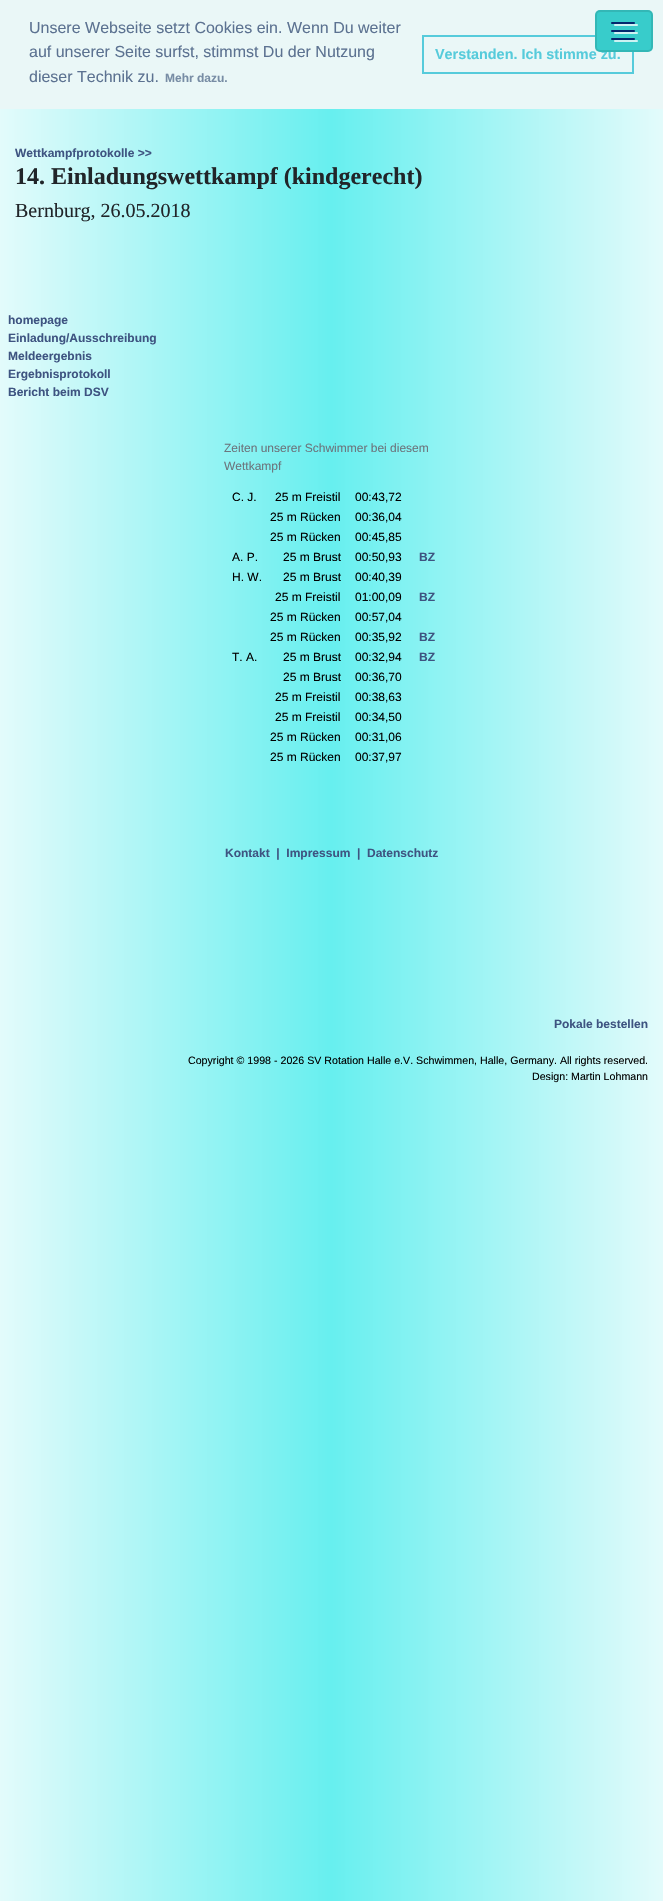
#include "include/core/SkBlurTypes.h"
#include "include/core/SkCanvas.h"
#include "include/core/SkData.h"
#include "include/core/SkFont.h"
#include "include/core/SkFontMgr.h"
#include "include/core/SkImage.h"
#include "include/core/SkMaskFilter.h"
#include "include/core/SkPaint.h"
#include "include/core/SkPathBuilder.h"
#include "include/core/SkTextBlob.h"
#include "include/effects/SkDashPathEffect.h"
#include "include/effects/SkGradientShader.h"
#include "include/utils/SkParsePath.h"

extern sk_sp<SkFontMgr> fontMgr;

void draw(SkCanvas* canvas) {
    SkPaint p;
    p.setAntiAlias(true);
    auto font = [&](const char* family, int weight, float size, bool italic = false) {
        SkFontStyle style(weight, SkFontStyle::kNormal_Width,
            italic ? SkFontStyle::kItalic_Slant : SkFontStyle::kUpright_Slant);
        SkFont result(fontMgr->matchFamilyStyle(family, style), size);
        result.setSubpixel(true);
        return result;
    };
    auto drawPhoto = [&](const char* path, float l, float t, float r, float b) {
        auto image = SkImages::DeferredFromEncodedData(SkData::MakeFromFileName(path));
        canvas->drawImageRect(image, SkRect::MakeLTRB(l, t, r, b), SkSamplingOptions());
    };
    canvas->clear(0xFFFFFFFF);
    {
        const SkColor colors[] = {0xFFE3FBFB, 0xFF67EFEF, 0xFFE3FBFB};
        const float stops[] = {0, 0.5f, 1};
        const SkPoint ends[] = {{0, 550}, {663, 550}};
        p.setShader(SkGradientShader::MakeLinear(ends, colors, stops, 3, SkTileMode::kClamp));
        p.setAlpha(255);
    }
    canvas->drawRect(SkRect::MakeLTRB(0, 109, 663, 1901), p);
    p.setShader(nullptr);
    p.setColor(0xFFEAF7F7);
    canvas->drawRect(SkRect::MakeLTRB(0, 0, 663, 109), p);
    auto font1 = font("Liberation Sans", 400, 16);
    p.setColor(0xFF5C7291);
    {
        const struct { const char* s; float x, y; } items[] = {
            {"Unsere Webseite setzt Cookies ein. Wenn Du weiter", 29, 33},
            {"auf unserer Seite surfst, stimmst Du der Nutzung", 29, 57},
            {"dieser Technik zu.", 29, 82},
        };
        for (auto [s, x, y] : items) {
            canvas->drawString(s, x, y, font1, p);
        }
    }
    auto font2 = font("Liberation Sans", 700, 12);
    p.setColor(0xFF788DA5);
    canvas->drawString("Mehr dazu.", 165, 82, font2, p);
    p.setStyle(SkPaint::kStroke_Style);
    p.setStrokeWidth(2);
    p.setColor(0xFF56CBDB);
    canvas->drawRect(SkRect::MakeLTRB(423, 36, 633, 73), p);
    auto font3 = font("Liberation Sans", 700, 14.4f);
    p.setStyle(SkPaint::kFill_Style);
    canvas->drawString("Verstanden. Ich stimme zu.", 435, 59, font3, p);
    p.setColor(0xFF38CCCB);
    canvas->drawRoundRect(SkRect::MakeLTRB(595, 10, 653, 52), 5, 5, p);
    p.setStyle(SkPaint::kStroke_Style);
    p.setColor(0x1A000000);
    canvas->drawRoundRect(SkRect::MakeLTRB(596, 11, 652, 51), 4, 4, p);
    drawPhoto("media/1.png", 611, 22, 638, 42);
    p.setStyle(SkPaint::kFill_Style);
    p.setColor(0xFF3E5481);
    canvas->drawString("Wettkampfprotokolle >>", 15, 157, font2, p);
    auto font4 = font("Liberation Serif", 700, 24);
    p.setColor(0xFF212529);
    canvas->drawString("14. Einladungswettkampf (kindgerecht)", 15, 184, font4, p);
    auto font5 = font("Liberation Serif", 400, 20);
    canvas->drawString("Bernburg, 26.05.2018", 15, 217, font5, p);
    p.setColor(0xFF3E5481);
    {
        const struct { const char* s; float x, y; } items[] = {
            {"homepage", 8, 324},
            {"Einladung/Ausschreibung", 8, 342},
            {"Meldeergebnis", 8, 360},
            {"Ergebnisprotokoll", 8, 378},
            {"Bericht beim DSV", 8, 396},
        };
        for (auto [s, x, y] : items) {
            canvas->drawString(s, x, y, font2, p);
        }
    }
    auto font6 = font("Liberation Sans", 400, 12);
    p.setColor(0xFF6C757D);
    canvas->drawString("Zeiten unserer Schwimmer bei diesem", 224, 452, font6, p);
    canvas->drawString("Wettkampf", 224, 470, font6, p);
    p.setColor(0xFF000000);
    {
        const struct { const char* s; float x, y; } items[] = {
            {"C. J.", 232, 501},
            {"25 m Freistil", 275, 501},
            {"00:43,72", 355, 501},
            {"25 m Rücken", 270, 521},
            {"00:36,04", 355, 521},
            {"25 m Rücken", 270, 541},
            {"00:45,85", 355, 541},
            {"A. P.", 232, 561},
            {"25 m Brust", 283, 561},
            {"00:50,93", 355, 561},
        };
        for (auto [s, x, y] : items) {
            canvas->drawString(s, x, y, font6, p);
        }
    }
    p.setColor(0xFF3E5481);
    canvas->drawString("BZ", 419, 561, font2, p);
    p.setColor(0xFF000000);
    {
        const struct { const char* s; float x, y; } items[] = {
            {"H. W.", 232, 581},
            {"25 m Brust", 283, 581},
            {"00:40,39", 355, 581},
            {"25 m Freistil", 275, 601},
            {"01:00,09", 355, 601},
        };
        for (auto [s, x, y] : items) {
            canvas->drawString(s, x, y, font6, p);
        }
    }
    p.setColor(0xFF3E5481);
    canvas->drawString("BZ", 419, 601, font2, p);
    p.setColor(0xFF000000);
    {
        const struct { const char* s; float x, y; } items[] = {
            {"25 m Rücken", 270, 621},
            {"00:57,04", 355, 621},
            {"25 m Rücken", 270, 641},
            {"00:35,92", 355, 641},
        };
        for (auto [s, x, y] : items) {
            canvas->drawString(s, x, y, font6, p);
        }
    }
    p.setColor(0xFF3E5481);
    canvas->drawString("BZ", 419, 641, font2, p);
    p.setColor(0xFF000000);
    {
        const struct { const char* s; float x, y; } items[] = {
            {"T. A.", 232, 661},
            {"25 m Brust", 283, 661},
            {"00:32,94", 355, 661},
        };
        for (auto [s, x, y] : items) {
            canvas->drawString(s, x, y, font6, p);
        }
    }
    p.setColor(0xFF3E5481);
    canvas->drawString("BZ", 419, 661, font2, p);
    p.setColor(0xFF000000);
    {
        const struct { const char* s; float x, y; } items[] = {
            {"25 m Brust", 283, 681},
            {"00:36,70", 355, 681},
            {"25 m Freistil", 275, 701},
            {"00:38,63", 355, 701},
            {"25 m Freistil", 275, 721},
            {"00:34,50", 355, 721},
            {"25 m Rücken", 270, 741},
            {"00:31,06", 355, 741},
            {"25 m Rücken", 270, 761},
            {"00:37,97", 355, 761},
        };
        for (auto [s, x, y] : items) {
            canvas->drawString(s, x, y, font6, p);
        }
    }
    p.setColor(0xFF3E5481);
    {
        const struct { const char* s; float x, y; } items[] = {
            {"Kontakt  |  Impressum", 225, 857},
            {"|  Datenschutz", 357, 857},
            {"Pokale bestellen", 554, 1028},
        };
        for (auto [s, x, y] : items) {
            canvas->drawString(s, x, y, font2, p);
        }
    }
    auto font7 = font("Liberation Sans", 400, 10.65f);
    p.setColor(0xFF000000);
    canvas->drawString("Copyright © 1998 - 2026 SV Rotation Halle e.V. Schwimmen, Halle, Germany. All rights reserved.", 188, 1064, font7, p);
    canvas->drawString("Design: Martin Lohmann", 532, 1080, font7, p);
}
